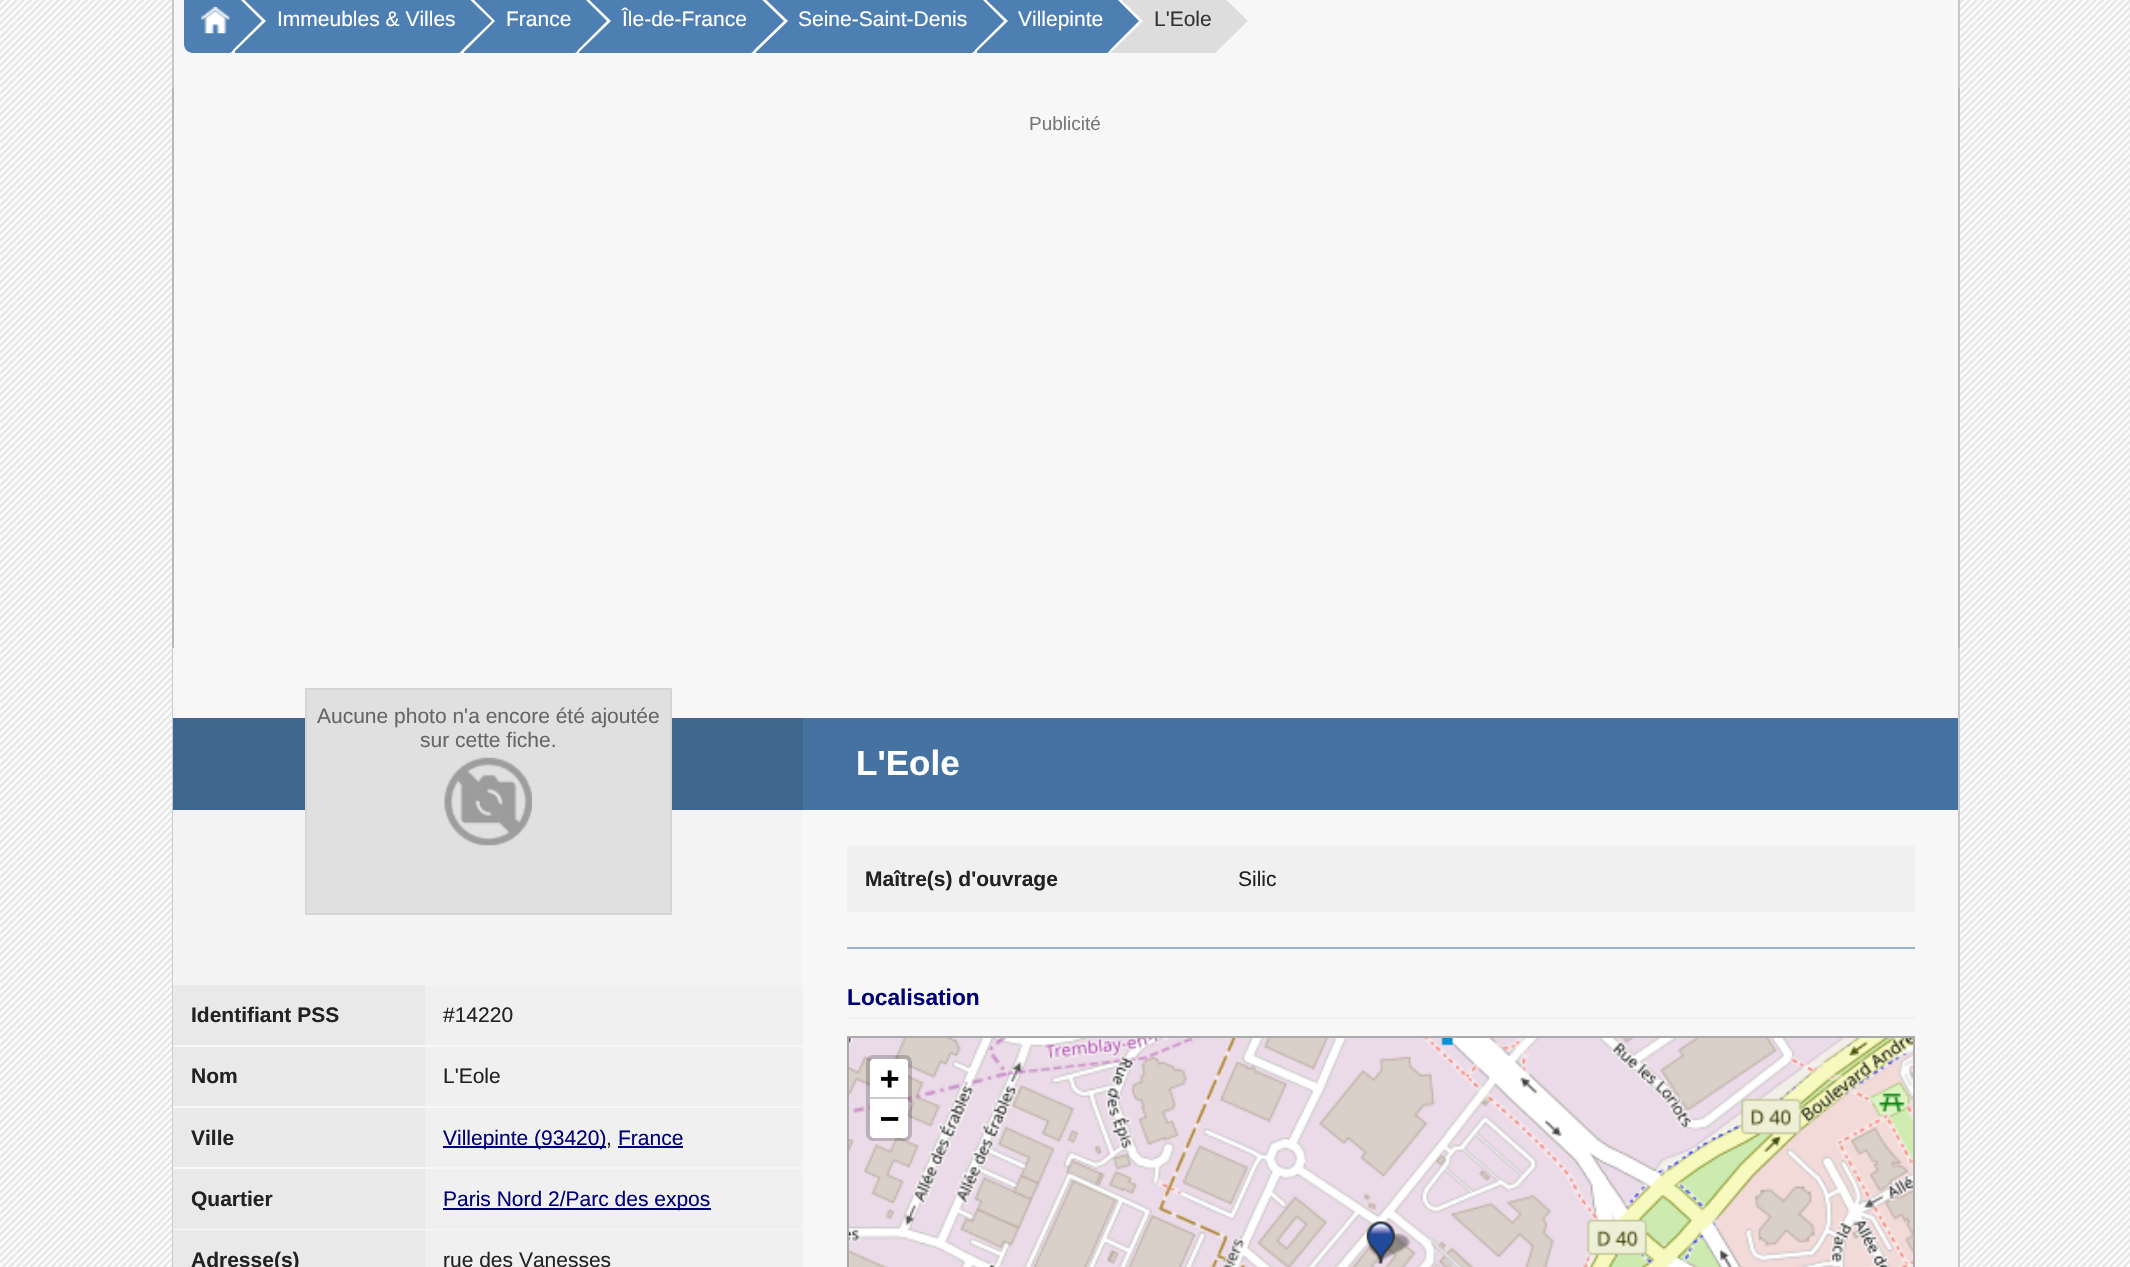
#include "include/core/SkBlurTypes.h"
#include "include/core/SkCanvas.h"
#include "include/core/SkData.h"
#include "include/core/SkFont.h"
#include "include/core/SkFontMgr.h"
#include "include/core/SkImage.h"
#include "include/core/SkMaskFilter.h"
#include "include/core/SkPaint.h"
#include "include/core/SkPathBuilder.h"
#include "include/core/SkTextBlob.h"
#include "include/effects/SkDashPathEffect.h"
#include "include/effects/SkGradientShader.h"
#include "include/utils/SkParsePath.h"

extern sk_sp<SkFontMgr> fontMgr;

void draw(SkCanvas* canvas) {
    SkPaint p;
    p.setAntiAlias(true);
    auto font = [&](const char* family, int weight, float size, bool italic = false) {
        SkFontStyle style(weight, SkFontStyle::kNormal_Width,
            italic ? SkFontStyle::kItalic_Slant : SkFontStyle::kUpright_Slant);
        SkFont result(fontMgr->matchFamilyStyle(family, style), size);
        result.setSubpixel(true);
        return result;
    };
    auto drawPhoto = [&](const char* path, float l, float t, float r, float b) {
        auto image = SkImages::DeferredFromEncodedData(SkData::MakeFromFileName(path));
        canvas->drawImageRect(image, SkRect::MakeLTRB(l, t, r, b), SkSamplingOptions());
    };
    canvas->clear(0xFFFFFFFF);
    drawPhoto("media/1.png", 0, 0, 2130, 1267);
    {
        const struct { float l, t, r, b; SkColor color; } items[] = {
            {1958, 0, 1960, 88, 0xFFC7C7C7},
            {172, 0, 174, 88, 0xFFC7C7C7},
            {174, 0, 1958, 648, 0xFFF7F7F7},
        };
        for (auto [l, t, r, b, color] : items) {
            p.setColor(color);
            canvas->drawRect(SkRect::MakeLTRB(l, t, r, b), p);
        }
    }
    p.setColor(0xFF4E7FB3);
    canvas->drawPath(SkPathBuilder().moveTo(193, -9).lineTo(229, -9).cubicTo(231, -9, 233, -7, 233, -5).lineTo(233, 49).cubicTo(233, 51, 231, 53, 229, 53).lineTo(193, 53).cubicTo(188, 53, 184, 49, 184, 44).lineTo(184, 0).cubicTo(184, -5, 188, -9, 193, -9).close().detach(), p);
    drawPhoto("media/2.png", 201, 7, 230, 34);
    canvas->drawPath(SkPathBuilder().moveTo(235, -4).lineTo(458, -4).cubicTo(460, -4, 462, -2, 462, 0).lineTo(462, 49).cubicTo(462, 51, 460, 53, 458, 53).lineTo(235, 53).close().detach(), p);
    p.setColor(0xFFFFFFFF);
    canvas->drawPath(SkPathBuilder().moveTo(234, 52).lineTo(234, -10).lineTo(266, 21).close().detach(), p);
    p.setColor(0xFF4E7FB3);
    canvas->drawPath(SkPathBuilder().moveTo(231, 52).lineTo(231, -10).lineTo(262, 21).close().detach(), p);
    auto font1 = font("Liberation Sans", 400, 21);
    p.setColor(0xFFFFFFFF);
    canvas->drawString("Immeubles & Villes", 277, 26, font1, p);
    p.setColor(0xFF4E7FB3);
    canvas->drawPath(SkPathBuilder().moveTo(464, -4).lineTo(574, -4).cubicTo(576, -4, 578, -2, 578, 0).lineTo(578, 49).cubicTo(578, 51, 576, 53, 574, 53).lineTo(464, 53).close().detach(), p);
    p.setColor(0xFFFFFFFF);
    canvas->drawPath(SkPathBuilder().moveTo(464, 52).lineTo(464, -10).lineTo(495, 21).close().detach(), p);
    p.setColor(0xFF4E7FB3);
    canvas->drawPath(SkPathBuilder().moveTo(460, 52).lineTo(460, -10).lineTo(492, 21).close().detach(), p);
    p.setColor(0xFFFFFFFF);
    canvas->drawString("France", 506, 26, font1, p);
    p.setColor(0xFF4E7FB3);
    canvas->drawPath(SkPathBuilder().moveTo(579, -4).lineTo(750, -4).cubicTo(752, -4, 754, -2, 754, 0).lineTo(754, 49).cubicTo(754, 51, 752, 53, 750, 53).lineTo(579, 53).close().detach(), p);
    p.setColor(0xFFFFFFFF);
    canvas->drawPath(SkPathBuilder().moveTo(579, 52).lineTo(579, -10).lineTo(611, 21).close().detach(), p);
    p.setColor(0xFF4E7FB3);
    canvas->drawPath(SkPathBuilder().moveTo(576, 52).lineTo(576, -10).lineTo(607, 21).close().detach(), p);
    p.setColor(0xFFFFFFFF);
    canvas->drawString("Île-de-France", 622, 26, font1, p);
    p.setColor(0xFF4E7FB3);
    canvas->drawPath(SkPathBuilder().moveTo(756, -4).lineTo(971, -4).cubicTo(973, -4, 975, -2, 975, 0).lineTo(975, 49).cubicTo(975, 51, 973, 53, 971, 53).lineTo(756, 53).close().detach(), p);
    p.setColor(0xFFFFFFFF);
    canvas->drawPath(SkPathBuilder().moveTo(756, 52).lineTo(756, -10).lineTo(788, 21).close().detach(), p);
    p.setColor(0xFF4E7FB3);
    canvas->drawPath(SkPathBuilder().moveTo(752, 52).lineTo(752, -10).lineTo(784, 21).close().detach(), p);
    p.setColor(0xFFFFFFFF);
    canvas->drawString("Seine-Saint-Denis", 798, 26, font1, p);
    p.setColor(0xFF4E7FB3);
    canvas->drawPath(SkPathBuilder().moveTo(977, -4).lineTo(1106, -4).cubicTo(1108, -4, 1110, -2, 1110, 0).lineTo(1110, 49).cubicTo(1110, 51, 1108, 53, 1106, 53).lineTo(977, 53).close().detach(), p);
    p.setColor(0xFFFFFFFF);
    canvas->drawPath(SkPathBuilder().moveTo(976, 52).lineTo(976, -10).lineTo(1008, 21).close().detach(), p);
    p.setColor(0xFF4E7FB3);
    canvas->drawPath(SkPathBuilder().moveTo(973, 52).lineTo(973, -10).lineTo(1004, 21).close().detach(), p);
    p.setColor(0xFFFFFFFF);
    canvas->drawString("Villepinte", 1018, 26, font1, p);
    p.setColor(0xFFDDDDDD);
    canvas->drawPath(SkPathBuilder().moveTo(1111, -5).lineTo(1213, -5).cubicTo(1216, -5, 1218, -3, 1218, 0).lineTo(1218, 48).cubicTo(1218, 51, 1216, 53, 1213, 53).lineTo(1111, 53).close().detach(), p);
    p.setColor(0xFFFFFFFF);
    canvas->drawPath(SkPathBuilder().moveTo(1111, 52).lineTo(1111, -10).lineTo(1143, 21).close().detach(), p);
    p.setColor(0xFF4E7FB3);
    canvas->drawPath(SkPathBuilder().moveTo(1108, 52).lineTo(1108, -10).lineTo(1139, 21).close().detach(), p);
    p.setColor(0xFF333333);
    canvas->drawString("L'Eole", 1154, 26, font1, p);
    p.setColor(0xFFDDDDDD);
    canvas->drawPath(SkPathBuilder().moveTo(1216, 52).lineTo(1216, -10).lineTo(1248, 21).close().detach(), p);
    p.setColor(0xFFB8B8B8);
    canvas->drawRect(SkRect::MakeLTRB(1958, 88, 1960, 648), p);
    canvas->drawRect(SkRect::MakeLTRB(172, 88, 174, 648), p);
    auto font2 = font("Liberation Sans", 400, 19);
    p.setColor(0xFF777777);
    canvas->drawString("Publicité", 1029, 130, font2, p);
    {
        const struct { float l, t, r, b; SkColor color; } items[] = {
            {1958, 648, 1960, 1267, 0xFFCBCBCB},
            {172, 648, 173, 1267, 0xFFCBCBCB},
            {173, 648, 1958, 1267, 0xFFF7F7F7},
            {173, 810, 803, 985, 0xFFF4F4F4},
            {173, 718, 803, 810, 0xFF3E668F},
            {307, 690, 670, 913, 0xFFE0E0E0},
        };
        for (auto [l, t, r, b, color] : items) {
            p.setColor(color);
            canvas->drawRect(SkRect::MakeLTRB(l, t, r, b), p);
        }
    }
    drawPhoto("media/3.png", 444, 757, 532, 846);
    p.setStyle(SkPaint::kStroke_Style);
    p.setStrokeWidth(2);
    p.setColor(0xFFD5D5D5);
    canvas->drawRect(SkRect::MakeLTRB(306, 689, 671, 914), p);
    p.setStyle(SkPaint::kFill_Style);
    p.setColor(0xFF666666);
    canvas->drawString("Aucune photo n'a encore été ajoutée", 317, 723, font1, p);
    canvas->drawString("sur cette fiche.", 420, 747, font1, p);
    p.setColor(0xFFE9E9E9);
    canvas->drawRect(SkRect::MakeLTRB(173, 985, 425, 1045), p);
    auto font3 = font("Liberation Sans", 700, 21);
    p.setColor(0xFF222222);
    canvas->drawString("Identifiant PSS", 191, 1022, font3, p);
    p.setColor(0xFFF0F0F0);
    canvas->drawRect(SkRect::MakeLTRB(425, 985, 803, 1045), p);
    p.setColor(0xFF222222);
    canvas->drawString("#14220", 443, 1022, font1, p);
    p.setColor(0xFFE9E9E9);
    canvas->drawRect(SkRect::MakeLTRB(173, 1047, 425, 1106), p);
    p.setColor(0xFF222222);
    canvas->drawString("Nom", 191, 1083, font3, p);
    p.setColor(0xFFF0F0F0);
    canvas->drawRect(SkRect::MakeLTRB(425, 1047, 803, 1106), p);
    p.setColor(0xFF222222);
    canvas->drawString("L'Eole", 443, 1083, font1, p);
    p.setColor(0xFFE9E9E9);
    canvas->drawRect(SkRect::MakeLTRB(173, 1108, 425, 1167), p);
    p.setColor(0xFF222222);
    canvas->drawString("Ville", 191, 1145, font3, p);
    p.setColor(0xFFF0F0F0);
    canvas->drawRect(SkRect::MakeLTRB(425, 1108, 803, 1167), p);
    p.setColor(0xFF000077);
    canvas->drawRect(SkRect::MakeLTRB(443, 1146, 606, 1148), p);
    canvas->drawString("Villepinte (93420)", 443, 1145, font1, p);
    p.setColor(0xFF222222);
    canvas->drawString(",", 606, 1145, font1, p);
    p.setColor(0xFF000077);
    canvas->drawString("France", 618, 1145, font1, p);
    canvas->drawRect(SkRect::MakeLTRB(618, 1146, 683, 1148), p);
    p.setColor(0xFFE9E9E9);
    canvas->drawRect(SkRect::MakeLTRB(173, 1169, 425, 1229), p);
    p.setColor(0xFF222222);
    canvas->drawString("Quartier", 191, 1206, font3, p);
    p.setColor(0xFFF0F0F0);
    canvas->drawRect(SkRect::MakeLTRB(425, 1169, 803, 1229), p);
    p.setColor(0xFF000077);
    canvas->drawRect(SkRect::MakeLTRB(443, 1208, 711, 1210), p);
    canvas->drawString("Paris Nord 2/Parc des expos", 443, 1206, font1, p);
    p.setColor(0xFFE9E9E9);
    canvas->drawRect(SkRect::MakeLTRB(173, 1230, 425, 1267), p);
    p.setColor(0xFF222222);
    canvas->drawString("Adresse(s)", 191, 1267, font3, p);
    p.setColor(0xFFF0F0F0);
    canvas->drawRect(SkRect::MakeLTRB(425, 1230, 803, 1267), p);
    p.setColor(0xFF222222);
    canvas->drawString("rue des Vanesses", 443, 1267, font1, p);
    p.setColor(0xFFF0F0F0);
    canvas->drawRect(SkRect::MakeLTRB(847, 845, 1915, 912), p);
    p.setColor(0xFF222222);
    canvas->drawString("Maître(s) d'ouvrage", 865, 886, font3, p);
    canvas->drawString("Silic", 1238, 886, font1, p);
    p.setColor(0xFF95B2D1);
    canvas->drawRect(SkRect::MakeLTRB(847, 947, 1915, 949), p);
    p.setColor(0xFFF0F0F0);
    canvas->drawRect(SkRect::MakeLTRB(847, 1017, 1915, 1019), p);
    auto font4 = font("Liberation Sans", 700, 22.75f);
    p.setColor(0xFF000077);
    canvas->drawString("Localisation", 847, 1005, font4, p);
    p.setStyle(SkPaint::kStroke_Style);
    p.setColor(0xFFAAAAAA);
    canvas->drawRect(SkRect::MakeLTRB(848, 1037, 1914, 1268), p);
    drawPhoto("media/4.png", 849, 1038, 910, 1267);
    drawPhoto("media/5.png", 910, 1038, 1358, 1267);
    drawPhoto("media/6.png", 1358, 1038, 1806, 1267);
    drawPhoto("media/7.png", 1806, 1038, 1913, 1267);
    drawPhoto("media/9.png", 1368, 1233, 1411, 1264);
    drawPhoto("media/8.png", 1366, 1221, 1395, 1264);
    p.setStrokeWidth(4);
    p.setColor(0x33000000);
    canvas->drawRoundRect(SkRect::MakeLTRB(868, 1057, 910, 1139), 5, 5, p);
    p.setStyle(SkPaint::kFill_Style);
    p.setColor(0xFFFFFFFF);
    canvas->drawPath(SkPathBuilder().moveTo(874, 1059).lineTo(904, 1059).cubicTo(906, 1059, 908, 1061, 908, 1063).lineTo(908, 1099).lineTo(870, 1099).lineTo(870, 1063).cubicTo(870, 1061, 872, 1059, 874, 1059).close().detach(), p);
    p.setColor(0xFFCCCCCC);
    canvas->drawRect(SkRect::MakeLTRB(870, 1097, 908, 1099), p);
    auto font5 = font("DejaVu Sans Mono", 700, 32);
    p.setColor(0xFF000000);
    canvas->drawString("+", 880, 1089, font5, p);
    p.setColor(0xFFFFFFFF);
    canvas->drawPath(SkPathBuilder().moveTo(870, 1099).lineTo(908, 1099).lineTo(908, 1134).cubicTo(908, 1136, 906, 1138, 904, 1138).lineTo(874, 1138).cubicTo(872, 1138, 870, 1136, 870, 1134).close().detach(), p);
    p.setColor(0xFF000000);
    canvas->drawString("−", 880, 1129, font5, p);
    p.setColor(0xFF4672A1);
    canvas->drawRect(SkRect::MakeLTRB(803, 718, 1958, 810), p);
    auto font6 = font("Liberation Sans", 700, 35);
    p.setColor(0xFFFFFFFF);
    canvas->drawString("L'Eole", 856, 775, font6, p);
}
